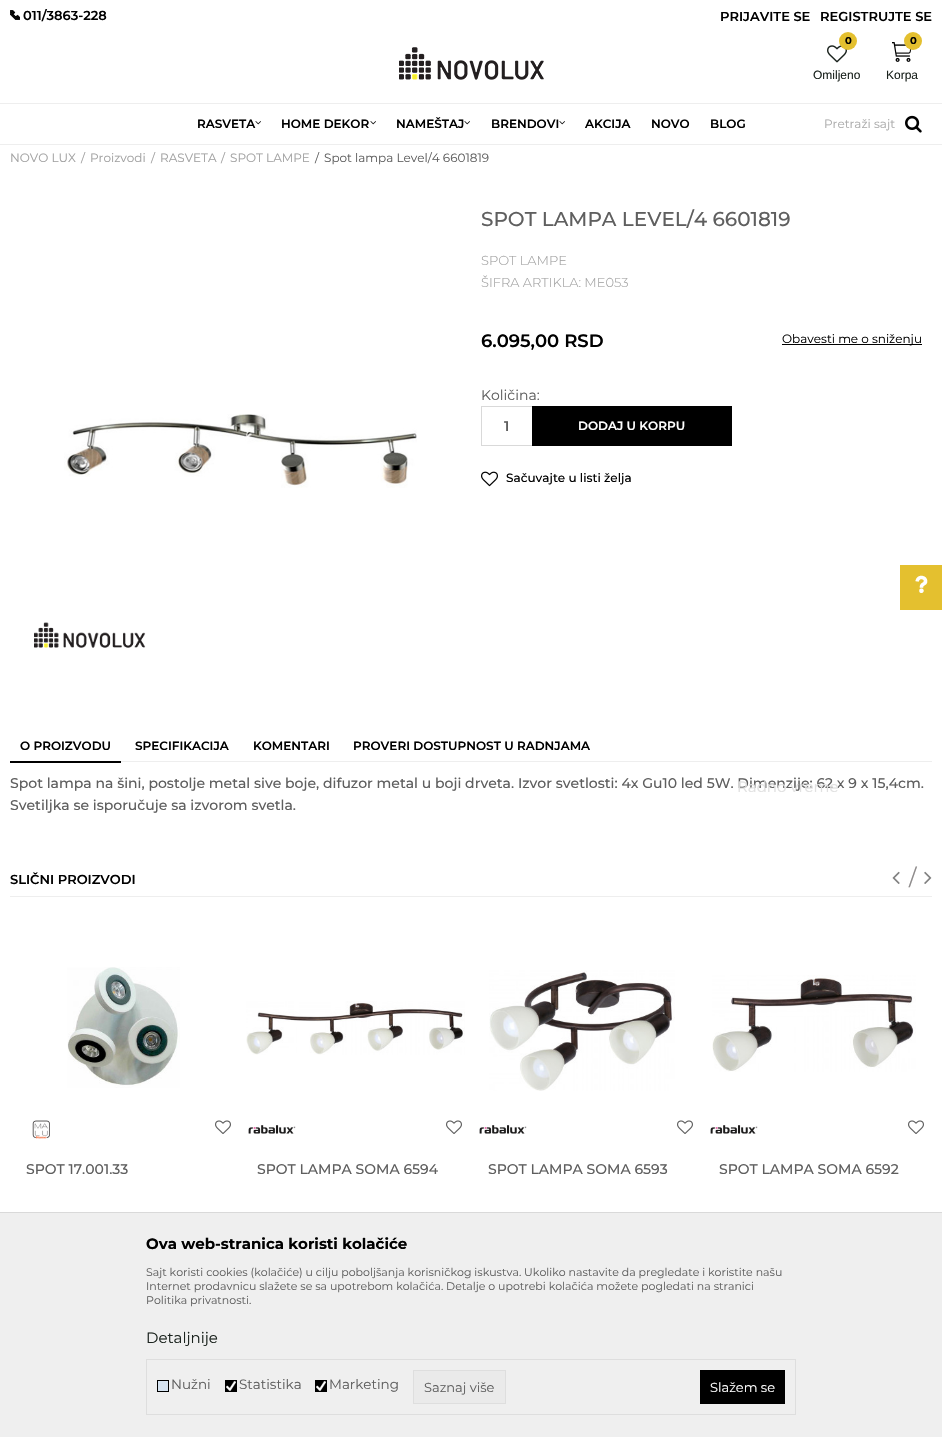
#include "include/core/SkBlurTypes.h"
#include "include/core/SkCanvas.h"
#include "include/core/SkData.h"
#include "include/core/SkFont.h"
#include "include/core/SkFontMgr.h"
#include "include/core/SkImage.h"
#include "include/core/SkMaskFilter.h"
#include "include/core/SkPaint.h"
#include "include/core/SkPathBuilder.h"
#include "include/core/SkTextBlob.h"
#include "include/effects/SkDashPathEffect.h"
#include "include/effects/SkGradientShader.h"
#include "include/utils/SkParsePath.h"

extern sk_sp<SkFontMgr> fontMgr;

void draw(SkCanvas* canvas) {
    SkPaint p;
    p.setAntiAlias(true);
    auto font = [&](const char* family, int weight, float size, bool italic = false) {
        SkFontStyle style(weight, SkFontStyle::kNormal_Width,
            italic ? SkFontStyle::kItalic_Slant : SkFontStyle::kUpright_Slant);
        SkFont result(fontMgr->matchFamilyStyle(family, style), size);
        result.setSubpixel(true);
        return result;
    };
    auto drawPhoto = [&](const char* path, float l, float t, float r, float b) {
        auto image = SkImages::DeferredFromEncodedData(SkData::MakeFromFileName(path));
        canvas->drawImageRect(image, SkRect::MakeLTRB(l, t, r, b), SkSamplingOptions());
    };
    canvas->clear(0xFFFFFFFF);
    drawPhoto("media/1.png", 10, 10, 20, 20);
    auto font1 = font("Montserrat", 600, 13);
    p.setColor(0xFF000000);
    {
        const struct { const char* s; float x, y; } items[] = {
            {"011/3863-228", 23, 20},
            {"PRIJAVITE SE", 720, 21},
            {"REGISTRUJTE SE", 820, 21},
        };
        for (auto [s, x, y] : items) {
            canvas->drawString(s, x, y, font1, p);
        }
    }
    drawPhoto("media/2.png", 399, 47, 544, 80);
    drawPhoto("media/3.png", 827, 45, 847, 63);
    p.setColor(0xFFE4C02F);
    canvas->drawCircle(848, 41, 9, p);
    auto font2 = font("Montserrat", 700, 10);
    p.setColor(0xFF000000);
    canvas->drawString("0", 845, 44, font2, p);
    auto font3 = font("Liberation Sans", 400, 12);
    p.setColor(0xFF1B231E);
    canvas->drawString("Omiljeno", 813, 79, font3, p);
    drawPhoto("media/4.png", 892, 42, 912, 62);
    p.setColor(0xFFE4C02F);
    canvas->drawCircle(913, 41, 9, p);
    p.setColor(0xFF000000);
    canvas->drawString("0", 910, 44, font2, p);
    p.setColor(0xFF1B231E);
    canvas->drawString("Korpa", 886, 79, font3, p);
    p.setColor(0xFFEEEEEE);
    canvas->drawRect(SkRect::MakeLTRB(0, 103, 942, 104), p);
    canvas->drawRect(SkRect::MakeLTRB(0, 144, 942, 145), p);
    auto font4 = font("Montserrat", 600, 12);
    p.setColor(0xFF000000);
    canvas->drawString("RASVETA", 197, 128, font4, p);
    drawPhoto("media/5.png", 255, 121, 261, 125);
    canvas->drawString("HOME DEKOR", 281, 128, font4, p);
    drawPhoto("media/5.png", 370, 121, 376, 125);
    canvas->drawString("NAMEŠTAJ", 396, 128, font4, p);
    drawPhoto("media/5.png", 464, 121, 470, 125);
    canvas->drawString("BRENDOVI", 491, 128, font4, p);
    drawPhoto("media/5.png", 559, 121, 565, 125);
    {
        const struct { const char* s; float x, y; } items[] = {
            {"AKCIJA", 585, 128},
            {"NOVO", 651, 128},
            {"BLOG", 710, 128},
        };
        for (auto [s, x, y] : items) {
            canvas->drawString(s, x, y, font4, p);
        }
    }
    auto font5 = font("Montserrat", 400, 12);
    p.setColor(0xFFABABAB);
    canvas->drawString("Pretraži sajt", 824, 128, font5, p);
    drawPhoto("media/6.png", 905, 115, 922, 133);
    p.setColor(0xFFA1A1A1);
    {
        const struct { const char* s; float x, y; } items[] = {
            {"NOVO LUX", 10, 162},
            {"/", 81, 162},
            {"Proizvodi", 90, 162},
            {"/", 151, 162},
            {"RASVETA", 160, 162},
            {"/", 221, 162},
            {"SPOT LAMPE", 230, 162},
        };
        for (auto [s, x, y] : items) {
            canvas->drawString(s, x, y, font5, p);
        }
    }
    p.setColor(0xFF5F5F5F);
    canvas->drawString("/", 315, 162, font5, p);
    canvas->drawString("Spot lampa Level/4 6601819", 324, 162, font5, p);
    auto font6 = font("Montserrat", 500, 20);
    canvas->drawString("SPOT LAMPA LEVEL/4 6601819", 481, 226, font6, p);
    auto font7 = font("Montserrat", 300, 13);
    p.setColor(0xFFA1A1A1);
    canvas->drawString("SPOT LAMPE", 481, 265, font7, p);
    canvas->drawString("ŠIFRA ARTIKLA: ME053", 481, 287, font7, p);
    auto font8 = font("Montserrat", 600, 18);
    p.setColor(0xFF000000);
    canvas->drawString("6.095,00 RSD", 481, 347, font8, p);
    canvas->drawRect(SkRect::MakeLTRB(782, 344, 922, 345), p);
    canvas->drawString("Obavesti me o sniženju", 782, 343, font5, p);
    auto font9 = font("Montserrat", 400, 14);
    p.setColor(0xFF5F5F5F);
    canvas->drawString("Količina:", 481, 400, font9, p);
    {
        const struct { float l, t, r, b; SkColor color; } items[] = {
            {481, 406, 482, 446, 0xFFD9D9D9},
            {482, 406, 532, 407, 0xFFD9D9D9},
            {482, 445, 532, 446, 0xFFD9D9D9},
        };
        for (auto [l, t, r, b, color] : items) {
            p.setColor(color);
            canvas->drawRect(SkRect::MakeLTRB(l, t, r, b), p);
        }
    }
    auto font10 = font("Montserrat", 600, 14);
    p.setColor(0xFF5F5F5F);
    canvas->drawString("1", 504, 431, font10, p);
    p.setColor(0xFF000000);
    canvas->drawRect(SkRect::MakeLTRB(532, 406, 732, 446), p);
    p.setColor(0xFFFFFFFF);
    canvas->drawString("DODAJ U KORPU", 578, 430, font4, p);
    drawPhoto("media/7.png", 481, 471, 498, 487);
    auto font11 = font("Montserrat", 500, 12);
    p.setColor(0xFF000000);
    canvas->drawString("Sačuvajte u listi želja", 506, 482, font11, p);
    drawPhoto("media/8.png", 64, 414, 417, 488);
    drawPhoto("media/9.png", 34, 622, 146, 648);
    p.setColor(0xFFE4C02F);
    canvas->drawRect(SkRect::MakeLTRB(900, 565, 942, 610), p);
    drawPhoto("media/10.png", 915, 575, 928, 593);
    auto font12 = font("Montserrat", 500, 14);
    p.setColor(0xFF5F5F5F);
    canvas->drawString("Spot lampa na šini, postolje metal sive boje, difuzor metal u boji drveta. Izvor svetlosti: 4x Gu10 led 5W. Dimenzije: 62 x 9 x 15,4cm.", 10, 788, font12, p);
    auto font13 = font("Montserrat", 400, 15);
    p.setColor(0xFFE1E1E1);
    canvas->drawString("Radno vreme", 737, 792, font13, p);
    p.setColor(0xFFEEEEEE);
    canvas->drawRect(SkRect::MakeLTRB(121, 761, 932, 762), p);
    p.setColor(0xFF000000);
    canvas->drawRect(SkRect::MakeLTRB(10, 761, 121, 763), p);
    {
        const struct { const char* s; float x, y; } items[] = {
            {"O PROIZVODU", 20, 750},
            {"SPECIFIKACIJA", 135, 750},
            {"KOMENTARI", 253, 750},
            {"PROVERI DOSTUPNOST U RADNJAMA", 353, 750},
        };
        for (auto [s, x, y] : items) {
            canvas->drawString(s, x, y, font4, p);
        }
    }
    p.setColor(0xFF5F5F5F);
    canvas->drawString("Svetiljka se isporučuje sa izvorom svetla.", 10, 810, font12, p);
    p.setColor(0xFFEEEEEE);
    canvas->drawRect(SkRect::MakeLTRB(10, 896, 932, 897), p);
    p.setColor(0xFF000000);
    canvas->drawString("SLIČNI PROIZVODI", 10, 884, font1, p);
    drawPhoto("media/11.png", 892, 871, 900, 884);
    auto font14 = font("Montserrat", 400, 22);
    p.setColor(0xFF8F8C8C);
    canvas->drawString("/", 909, 885, font14, p);
    drawPhoto("media/12.png", 924, 871, 932, 884);
    drawPhoto("media/13.png", 67, 967, 180, 1088);
    drawPhoto("media/14.png", 32, 1120, 50, 1139);
    drawPhoto("media/15.png", 215, 1120, 231, 1134);
    p.setColor(0xFF5F5F5F);
    canvas->drawString("SPOT 17.001.33", 26, 1174, font12, p);
    drawPhoto("media/16.png", 246, 1001, 465, 1055);
    drawPhoto("media/17.png", 248, 1125, 296, 1134);
    drawPhoto("media/15.png", 446, 1120, 462, 1134);
    canvas->drawString("SPOT LAMPA SOMA 6594", 257, 1174, font12, p);
    drawPhoto("media/18.png", 489, 970, 675, 1091);
    drawPhoto("media/17.png", 479, 1125, 527, 1134);
    drawPhoto("media/15.png", 677, 1120, 693, 1134);
    canvas->drawString("SPOT LAMPA SOMA 6593", 488, 1174, font12, p);
    drawPhoto("media/19.png", 712, 975, 916, 1072);
    drawPhoto("media/17.png", 710, 1125, 758, 1134);
    drawPhoto("media/15.png", 908, 1120, 924, 1134);
    canvas->drawString("SPOT LAMPA SOMA 6592", 719, 1174, font12, p);
    p.setStyle(SkPaint::kStroke_Style);
    p.setStrokeWidth(1);
    p.setColor(0xFFD9D9D9);
    canvas->drawRect(SkRect::MakeLTRB(-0.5f, 1212.5f, 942.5f, 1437.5f), p);
    p.setStyle(SkPaint::kFill_Style);
    p.setColor(0xFFEFEFEF);
    canvas->drawRect(SkRect::MakeLTRB(0, 1213, 942, 1437), p);
    auto font15 = font("Montserrat", 700, 15);
    p.setColor(0xFF000000);
    canvas->drawString("Ova web-stranica koristi kolačiće", 146, 1249, font15, p);
    auto font16 = font("Montserrat", 400, 11);
    p.setColor(0xFF5F5F5F);
    {
        const struct { const char* s; float x, y; } items[] = {
            {"Sajt koristi cookies (kolačiće) u cilju poboljšanja korisničkog iskustva. Ukoliko nastavite da pregledate i koristite našu", 146, 1276},
            {"Internet prodavnicu slažete se sa upotrebom kolačića. Detalje o upotrebi kolačića možete pogledati na stranici", 146, 1290},
            {"Politika privatnosti.", 146, 1304},
        };
        for (auto [s, x, y] : items) {
            canvas->drawString(s, x, y, font16, p);
        }
    }
    p.setColor(0xFF1B231E);
    canvas->drawString("Detaljnije", 146, 1343, font13, p);
    p.setStyle(SkPaint::kStroke_Style);
    p.setColor(0xFFDEDEDE);
    canvas->drawRect(SkRect::MakeLTRB(146.5f, 1359.5f, 795.5f, 1414.5f), p);
    p.setStyle(SkPaint::kFill_Style);
    p.setColor(0xFFD6E3F0);
    canvas->drawRect(SkRect::MakeLTRB(157.5f, 1380.5f, 168.5f, 1391.5f), p);
    p.setStyle(SkPaint::kStroke_Style);
    p.setColor(0xFF000000);
    canvas->drawRect(SkRect::MakeLTRB(157.5f, 1380.5f, 168.5f, 1391.5f), p);
    auto font17 = font("Montserrat", 400, 13.5f);
    p.setStyle(SkPaint::kFill_Style);
    p.setColor(0xFF5F5F5F);
    canvas->drawString("Nužni", 171, 1389, font17, p);
    p.setColor(0xFF000000);
    canvas->drawRect(SkRect::MakeLTRB(225, 1380, 237, 1392), p);
    drawPhoto("media/20.png", 226, 1381, 236, 1391);
    p.setColor(0xFF5F5F5F);
    canvas->drawString("Statistika", 239, 1389, font17, p);
    p.setColor(0xFF000000);
    canvas->drawRect(SkRect::MakeLTRB(315, 1380, 327, 1392), p);
    drawPhoto("media/20.png", 316, 1381, 326, 1391);
    p.setColor(0xFF5F5F5F);
    canvas->drawString("Marketing", 329, 1389, font17, p);
    p.setColor(0xFFEAEAEA);
    canvas->drawRect(SkRect::MakeLTRB(413.5f, 1370.5f, 505.5f, 1403.5f), p);
    p.setStyle(SkPaint::kStroke_Style);
    p.setColor(0xFFDEDEDE);
    canvas->drawRect(SkRect::MakeLTRB(413.5f, 1370.5f, 505.5f, 1403.5f), p);
    auto font18 = font("Montserrat", 400, 13);
    p.setStyle(SkPaint::kFill_Style);
    p.setColor(0xFF5F5F5F);
    canvas->drawString("Saznaj više", 424, 1392, font18, p);
    p.setColor(0xFF000000);
    canvas->drawRect(SkRect::MakeLTRB(700, 1370, 785, 1404), p);
    p.setColor(0xFFFFFFFF);
    canvas->drawString("Slažem se", 710, 1392, font18, p);
}
